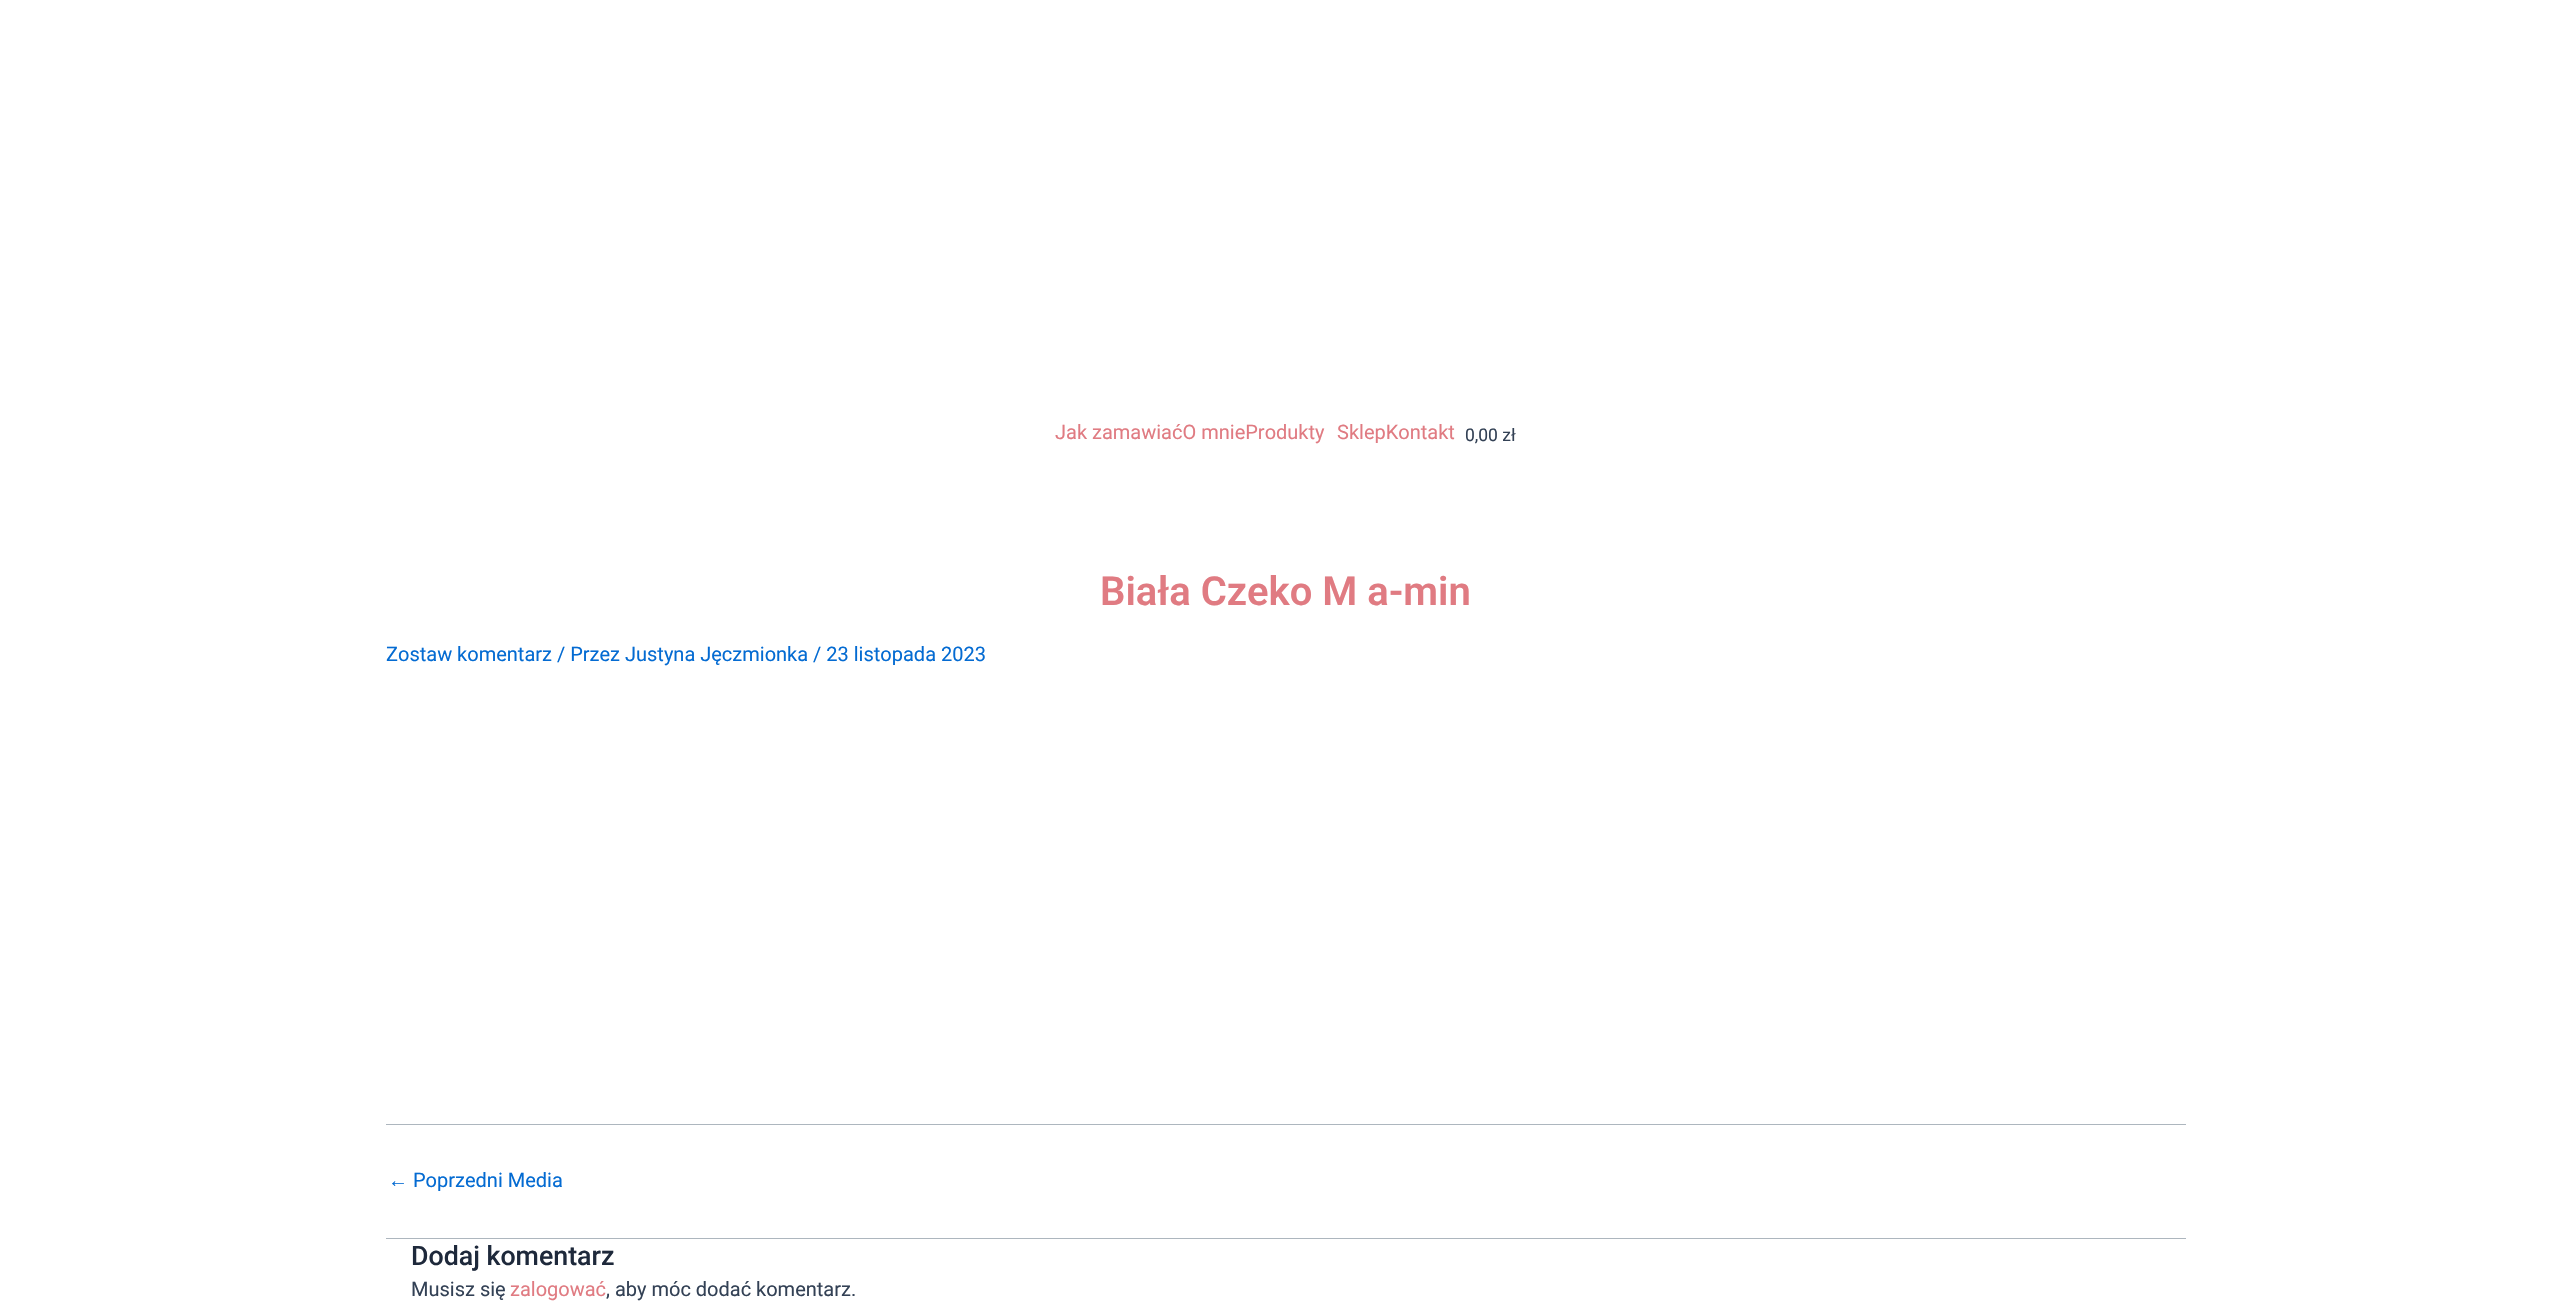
#include "include/core/SkBlurTypes.h"
#include "include/core/SkCanvas.h"
#include "include/core/SkData.h"
#include "include/core/SkFont.h"
#include "include/core/SkFontMgr.h"
#include "include/core/SkImage.h"
#include "include/core/SkMaskFilter.h"
#include "include/core/SkPaint.h"
#include "include/core/SkPathBuilder.h"
#include "include/core/SkTextBlob.h"
#include "include/effects/SkDashPathEffect.h"
#include "include/effects/SkGradientShader.h"
#include "include/utils/SkParsePath.h"

extern sk_sp<SkFontMgr> fontMgr;

void draw(SkCanvas* canvas) {
    SkPaint p;
    p.setAntiAlias(true);
    auto font = [&](const char* family, int weight, float size, bool italic = false) {
        SkFontStyle style(weight, SkFontStyle::kNormal_Width,
            italic ? SkFontStyle::kItalic_Slant : SkFontStyle::kUpright_Slant);
        SkFont result(fontMgr->matchFamilyStyle(family, style), size);
        result.setSubpixel(true);
        return result;
    };
    canvas->clear(0xFFFFFFFF);
    auto font1 = font("Roboto", 400, 20);
    p.setColor(0xFFE07B82);
    canvas->drawString("Jak zamawiaćO mnieProdukty", 1055, 439, font1, p);
    canvas->drawString("SklepKontakt", 1337, 439, font1, p);
    auto font2 = font("Roboto", 400, 17.5f);
    p.setColor(0xFF334155);
    canvas->drawString("0,00 zł", 1465, 441, font2, p);
    auto font3 = font("Roboto", 600, 40);
    p.setColor(0xFFE07B82);
    canvas->drawString("Biała Czeko M a-min", 1100, 605, font3, p);
    p.setColor(0xFF046BD2);
    canvas->drawString("Zostaw komentarz / Przez Justyna Jęczmionka / 23 listopada 2023", 386, 661, font1, p);
    p.setColor(0xFFADB6BE);
    canvas->drawRect(SkRect::MakeLTRB(386, 1124, 2186, 1125), p);
    auto font4 = font("Liberation Sans", 400, 20);
    p.setColor(0xFF046BD2);
    canvas->drawString("←", 388, 1187, font4, p);
    canvas->drawString("Poprzedni Media", 413, 1187, font1, p);
    p.setColor(0xFFADB6BE);
    canvas->drawRect(SkRect::MakeLTRB(386, 1238, 2186, 1239), p);
    auto font5 = font("Roboto", 500, 26.75f);
    p.setColor(0xFF1E293B);
    canvas->drawString("Dodaj komentarz", 411, 1265, font5, p);
    p.setColor(0xFF334155);
    canvas->drawString("Musisz się", 411, 1296, font1, p);
    p.setColor(0xFFE07B82);
    canvas->drawString("zalogować", 510, 1296, font1, p);
    p.setColor(0xFF334155);
    canvas->drawString(", aby móc dodać komentarz.", 606, 1296, font1, p);
}
